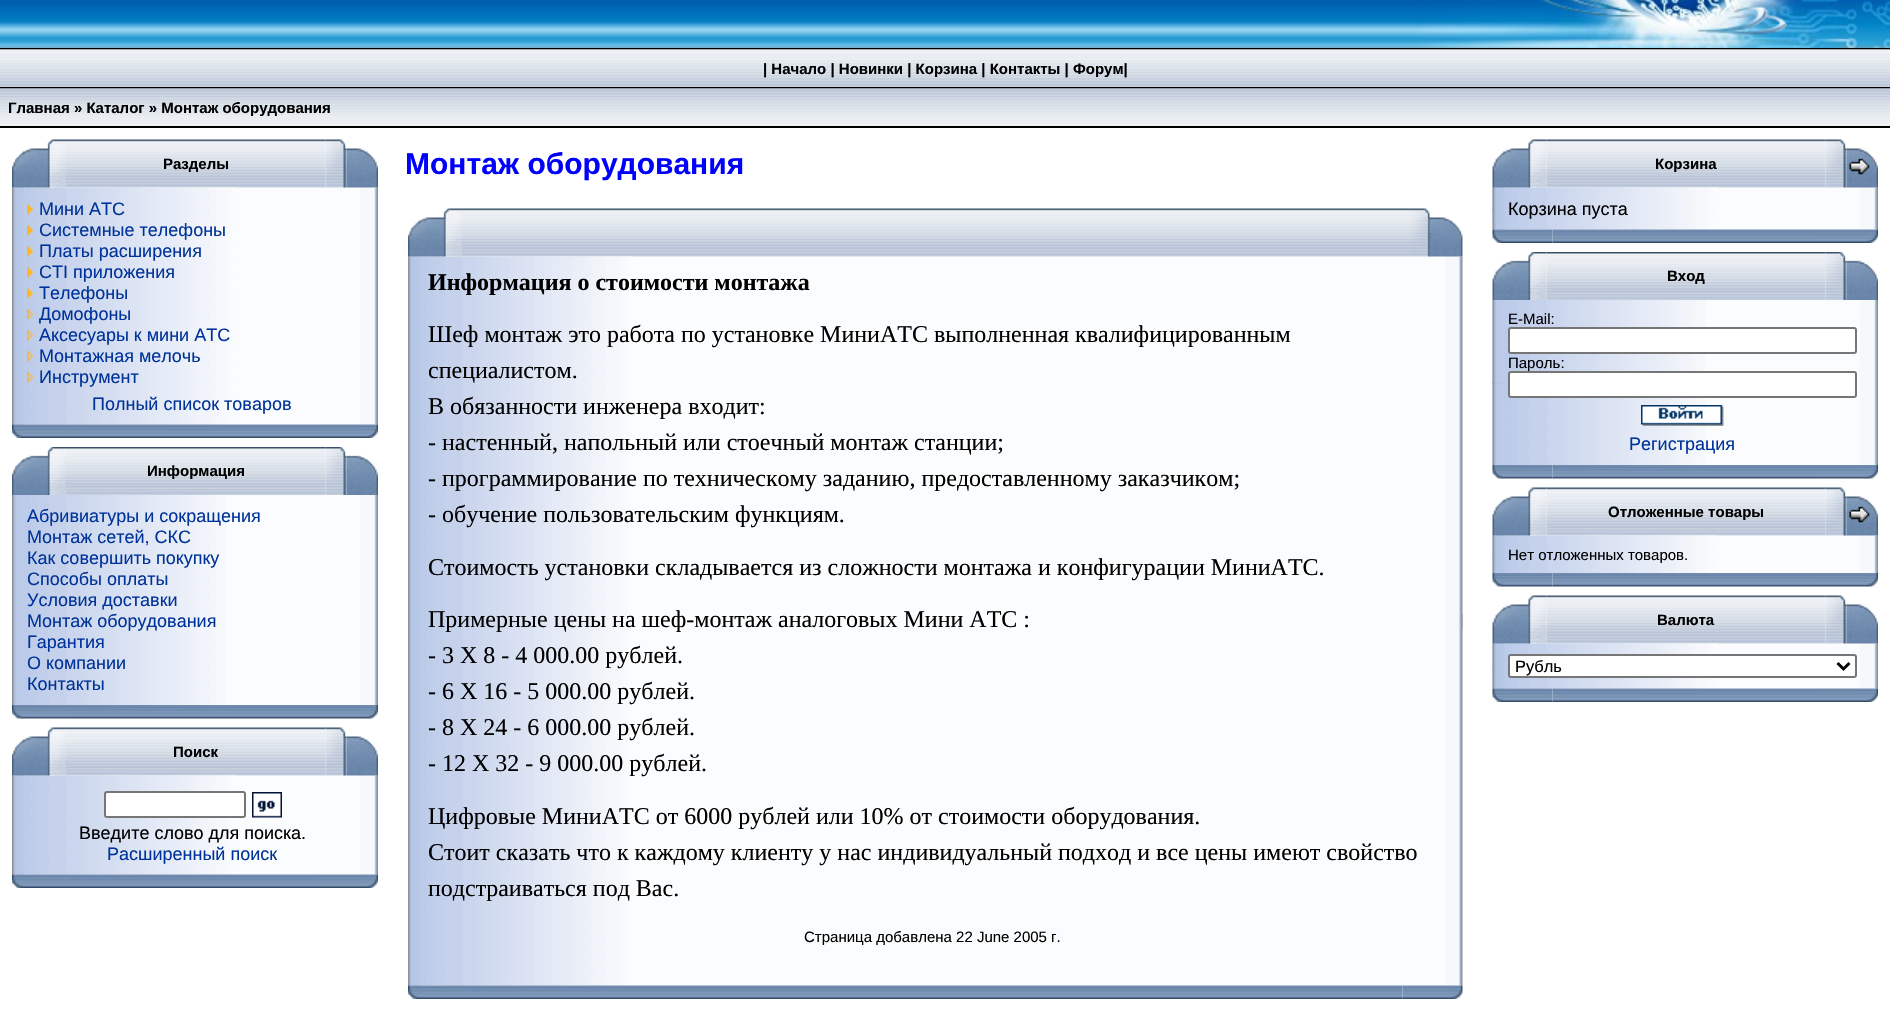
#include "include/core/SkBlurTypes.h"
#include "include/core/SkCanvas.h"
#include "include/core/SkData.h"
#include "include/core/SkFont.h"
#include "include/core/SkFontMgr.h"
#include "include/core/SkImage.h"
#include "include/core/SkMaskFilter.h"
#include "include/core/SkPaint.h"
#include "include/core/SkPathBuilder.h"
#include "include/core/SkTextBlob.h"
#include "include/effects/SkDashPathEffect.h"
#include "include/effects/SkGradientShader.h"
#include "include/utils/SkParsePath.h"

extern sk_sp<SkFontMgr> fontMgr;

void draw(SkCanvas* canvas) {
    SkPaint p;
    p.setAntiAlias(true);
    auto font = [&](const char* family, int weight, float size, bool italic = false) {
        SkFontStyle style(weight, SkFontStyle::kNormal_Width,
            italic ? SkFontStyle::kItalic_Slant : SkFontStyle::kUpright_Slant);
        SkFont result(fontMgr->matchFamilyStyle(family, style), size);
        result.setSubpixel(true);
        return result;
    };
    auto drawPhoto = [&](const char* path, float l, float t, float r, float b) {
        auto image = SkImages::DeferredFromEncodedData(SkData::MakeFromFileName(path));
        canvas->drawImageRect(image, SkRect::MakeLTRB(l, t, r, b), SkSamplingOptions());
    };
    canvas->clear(0xFFFFFFFF);
    drawPhoto("media/1.png", 0, 0, 1416, 48);
    drawPhoto("media/2.png", 1416, 0, 1890, 48);
    p.setColor(0xFF000000);
    canvas->drawRect(SkRect::MakeLTRB(0, 48, 1890, 50), p);
    drawPhoto("media/3.png", 0, 49, 1890, 87);
    auto font1 = font("Liberation Sans", 700, 15);
    canvas->drawString("| Начало | Новинки | Корзина | Контакты | Форум|", 763, 74, font1, p);
    canvas->drawRect(SkRect::MakeLTRB(0, 87, 1890, 89), p);
    drawPhoto("media/4.png", 0, 88, 1890, 126);
    canvas->drawString("Главная » Каталог » Монтаж оборудования", 8, 113, font1, p);
    canvas->drawRect(SkRect::MakeLTRB(0, 126, 1890, 128), p);
    drawPhoto("media/6.png", 66, 139, 326, 188);
    p.setColor(0xFFFBFCFD);
    canvas->drawRect(SkRect::MakeLTRB(12, 188, 378, 425), p);
    drawPhoto("media/9.png", 12, 187, 237, 425);
    drawPhoto("media/10.png", 12, 187, 24, 425);
    drawPhoto("media/5.png", 12, 139, 66, 188);
    p.setColor(0xFF000000);
    canvas->drawString("Разделы", 163, 169, font1, p);
    drawPhoto("media/7.png", 325, 139, 347, 188);
    drawPhoto("media/20.png", 360, 187, 378, 425);
    drawPhoto("media/8.png", 346, 148, 378, 188);
    drawPhoto("media/11.png", 27, 204, 34, 215);
    auto font2 = font("Liberation Sans", 400, 18);
    p.setColor(0xFF003399);
    canvas->drawString("Мини АТС", 39, 215, font2, p);
    drawPhoto("media/12.png", 27, 225, 34, 236);
    canvas->drawString("Системные телефоны", 39, 236, font2, p);
    drawPhoto("media/13.png", 27, 246, 34, 257);
    canvas->drawString("Платы расширения", 39, 257, font2, p);
    drawPhoto("media/14.png", 27, 267, 34, 278);
    canvas->drawString("CTI приложения", 39, 278, font2, p);
    drawPhoto("media/15.png", 27, 288, 34, 299);
    canvas->drawString("Телефоны", 39, 299, font2, p);
    drawPhoto("media/16.png", 27, 309, 34, 320);
    canvas->drawString("Домофоны", 39, 320, font2, p);
    drawPhoto("media/17.png", 27, 330, 34, 341);
    canvas->drawString("Аксесуары к мини АТС", 39, 341, font2, p);
    drawPhoto("media/18.png", 27, 351, 34, 362);
    canvas->drawString("Монтажная мелочь", 39, 362, font2, p);
    drawPhoto("media/19.png", 27, 372, 34, 383);
    canvas->drawString("Инструмент", 39, 383, font2, p);
    canvas->drawString("Полный список товаров", 92, 410, font2, p);
    drawPhoto("media/21.png", 12, 424, 72, 438);
    drawPhoto("media/22.png", 72, 424, 318, 438);
    drawPhoto("media/23.png", 318, 424, 378, 438);
    drawPhoto("media/24.png", 12, 447, 66, 495);
    drawPhoto("media/25.png", 66, 447, 326, 495);
    p.setColor(0xFF000000);
    canvas->drawString("Информация", 147, 476, font1, p);
    drawPhoto("media/26.png", 325, 447, 347, 495);
    drawPhoto("media/27.png", 346, 455, 378, 495);
    p.setColor(0xFFFBFCFD);
    canvas->drawRect(SkRect::MakeLTRB(226, 495, 360, 705), p);
    drawPhoto("media/28.png", 16, 495, 226, 705);
    drawPhoto("media/29.png", 12, 495, 16, 705);
    p.setColor(0xFF003399);
    {
        const struct { const char* s; float x, y; } items[] = {
            {"Абривиатуры и сокращения", 27, 522},
            {"Монтаж сетей, СКС", 27, 543},
            {"Как совершить покупку", 27, 564},
            {"Способы оплаты", 27, 585},
            {"Условия доставки", 27, 606},
            {"Монтаж оборудования", 27, 627},
            {"Гарантия", 27, 648},
            {"О компании", 27, 669},
            {"Контакты", 27, 690},
        };
        for (auto [s, x, y] : items) {
            canvas->drawString(s, x, y, font2, p);
        }
    }
    drawPhoto("media/30.png", 360, 495, 378, 705);
    drawPhoto("media/31.png", 12, 705, 72, 719);
    drawPhoto("media/32.png", 72, 705, 318, 719);
    drawPhoto("media/33.png", 318, 705, 378, 719);
    drawPhoto("media/6.png", 66, 727, 326, 776);
    p.setColor(0xFFFBFCFD);
    canvas->drawRect(SkRect::MakeLTRB(12, 776, 378, 875), p);
    drawPhoto("media/34.png", 12, 775, 237, 875);
    drawPhoto("media/35.png", 12, 775, 24, 875);
    drawPhoto("media/5.png", 12, 727, 66, 776);
    p.setColor(0xFF000000);
    canvas->drawString("Поиск", 173, 757, font1, p);
    drawPhoto("media/7.png", 325, 727, 347, 776);
    drawPhoto("media/37.png", 360, 775, 378, 875);
    drawPhoto("media/8.png", 346, 736, 378, 776);
    p.setColor(0xFFFFFFFF);
    canvas->drawRoundRect(SkRect::MakeLTRB(105, 792, 245, 817), 2, 2, p);
    p.setStyle(SkPaint::kStroke_Style);
    p.setStrokeWidth(2);
    p.setColor(0xFF767676);
    canvas->drawRoundRect(SkRect::MakeLTRB(105, 792, 245, 817), 2, 2, p);
    drawPhoto("media/36.png", 252, 792, 282, 818);
    p.setStyle(SkPaint::kFill_Style);
    p.setColor(0xFF000000);
    canvas->drawString("Введите слово для поиска.", 79, 839, font2, p);
    p.setColor(0xFF003399);
    canvas->drawString("Расширенный поиск", 107, 860, font2, p);
    drawPhoto("media/38.png", 12, 874, 72, 888);
    drawPhoto("media/39.png", 72, 874, 318, 888);
    drawPhoto("media/23.png", 318, 874, 378, 888);
    auto font3 = font("Liberation Sans", 700, 30);
    p.setColor(0xFF0000FF);
    canvas->drawString("Монтаж оборудования", 405, 174, font3, p);
    drawPhoto("media/41.png", 462, 208, 1410, 257);
    p.setColor(0xFFFBFCFD);
    canvas->drawRect(SkRect::MakeLTRB(408, 257, 1463, 986), p);
    drawPhoto("media/44.png", 408, 256, 633, 986);
    drawPhoto("media/45.png", 408, 256, 420, 986);
    drawPhoto("media/40.png", 408, 208, 462, 257);
    drawPhoto("media/42.png", 1410, 208, 1431, 257);
    drawPhoto("media/46.png", 1445, 256, 1463, 986);
    drawPhoto("media/43.png", 1431, 217, 1463, 257);
    auto font4 = font("Liberation Serif", 700, 24);
    p.setColor(0xFF000000);
    canvas->drawString("Информация о стоимости монтажа", 428, 290, font4, p);
    auto font5 = font("Liberation Serif", 400, 24);
    {
        const struct { const char* s; float x, y; } items[] = {
            {"Шеф монтаж это работа по установке МиниАТС выполненная квалифицированным", 428, 342},
            {"специалистом.", 428, 378},
            {"В обязанности инженера входит:", 428, 414},
            {"- настенный, напольный или стоечный монтаж станции;", 428, 450},
            {"- программирование по техническому заданию, предоставленному заказчиком;", 428, 486},
            {"- обучение пользовательским функциям.", 428, 522},
            {"Стоимость установки складывается из сложности монтажа и конфигурации МиниАТС.", 428, 575},
            {"Примерные цены на шеф-монтаж аналоговых Мини АТС :", 428, 627},
            {"- 3 Х 8 - 4 000.00 рублей.", 428, 663},
            {"- 6 Х 16 - 5 000.00 рублей.", 428, 699},
            {"- 8 Х 24 - 6 000.00 рублей.", 428, 735},
            {"- 12 Х 32 - 9 000.00 рублей.", 428, 771},
            {"Цифровые МиниАТС от 6000 рублей или 10% от стоимости оборудования.", 428, 824},
            {"Стоит сказать что к каждому клиенту у нас индивидуальный подход и все цены имеют свойство", 428, 860},
            {"подстраиваться под Вас.", 428, 896},
        };
        for (auto [s, x, y] : items) {
            canvas->drawString(s, x, y, font5, p);
        }
    }
    auto font6 = font("Liberation Sans", 400, 15);
    canvas->drawString("Страница добавлена 22 June 2005 г.", 804, 942, font6, p);
    drawPhoto("media/47.png", 1462, 613, 1463, 629);
    drawPhoto("media/48.png", 408, 985, 468, 999);
    drawPhoto("media/49.png", 468, 985, 1403, 999);
    drawPhoto("media/50.png", 1402, 985, 1463, 999);
    drawPhoto("media/52.png", 1546, 139, 1826, 188);
    p.setColor(0xFFFBFCFD);
    canvas->drawRect(SkRect::MakeLTRB(1493, 188, 1878, 230), p);
    drawPhoto("media/54.png", 1492, 187, 1718, 230);
    drawPhoto("media/55.png", 1492, 187, 1505, 230);
    drawPhoto("media/51.png", 1492, 139, 1547, 188);
    p.setColor(0xFF000000);
    canvas->drawString("Корзина", 1655, 169, font1, p);
    drawPhoto("media/7.png", 1825, 139, 1847, 188);
    drawPhoto("media/57.png", 1860, 187, 1878, 230);
    drawPhoto("media/53.png", 1846, 148, 1878, 188);
    drawPhoto("media/56.png", 1492, 208, 1493, 210);
    canvas->drawString("Корзина пуста", 1508, 215, font2, p);
    drawPhoto("media/59.png", 1552, 229, 1818, 243);
    drawPhoto("media/58.png", 1492, 229, 1553, 243);
    drawPhoto("media/23.png", 1818, 229, 1878, 243);
    drawPhoto("media/61.png", 1546, 252, 1826, 300);
    drawPhoto("media/60.png", 1492, 252, 1547, 300);
    canvas->drawString("Вход", 1667, 281, font1, p);
    drawPhoto("media/26.png", 1825, 252, 1847, 300);
    drawPhoto("media/27.png", 1846, 260, 1878, 300);
    p.setColor(0xFFFBFCFD);
    canvas->drawRect(SkRect::MakeLTRB(1706, 300, 1860, 465), p);
    drawPhoto("media/62.png", 1492, 300, 1706, 465);
    drawPhoto("media/63.png", 1492, 300, 1496, 465);
    drawPhoto("media/64.png", 1492, 382, 1504, 384);
    p.setColor(0xFF000000);
    canvas->drawString("E-Mail:", 1508, 324, font6, p);
    p.setColor(0xFFFFFFFF);
    canvas->drawRoundRect(SkRect::MakeLTRB(1509, 328, 1856, 353), 2, 2, p);
    p.setStyle(SkPaint::kStroke_Style);
    p.setColor(0xFF767676);
    canvas->drawRoundRect(SkRect::MakeLTRB(1509, 328, 1856, 353), 2, 2, p);
    p.setStyle(SkPaint::kFill_Style);
    p.setColor(0xFF000000);
    canvas->drawString("Пароль:", 1508, 368, font6, p);
    p.setColor(0xFFFFFFFF);
    canvas->drawRoundRect(SkRect::MakeLTRB(1509, 372, 1856, 397), 2, 2, p);
    p.setStyle(SkPaint::kStroke_Style);
    p.setColor(0xFF767676);
    canvas->drawRoundRect(SkRect::MakeLTRB(1509, 372, 1856, 397), 2, 2, p);
    drawPhoto("media/65.png", 1641, 405, 1724, 426);
    p.setStyle(SkPaint::kFill_Style);
    p.setColor(0xFF003399);
    canvas->drawString("Регистрация", 1629, 450, font2, p);
    drawPhoto("media/66.png", 1860, 300, 1878, 465);
    drawPhoto("media/68.png", 1552, 465, 1818, 479);
    drawPhoto("media/67.png", 1492, 465, 1553, 479);
    drawPhoto("media/33.png", 1818, 465, 1878, 479);
    drawPhoto("media/52.png", 1546, 487, 1826, 536);
    p.setColor(0xFFFBFCFD);
    canvas->drawRect(SkRect::MakeLTRB(1717, 536, 1860, 573), p);
    drawPhoto("media/69.png", 1492, 535, 1718, 573);
    drawPhoto("media/70.png", 1492, 535, 1505, 573);
    drawPhoto("media/51.png", 1492, 487, 1547, 536);
    p.setColor(0xFF000000);
    canvas->drawString("Отложенные товары", 1608, 517, font1, p);
    drawPhoto("media/7.png", 1825, 487, 1847, 536);
    drawPhoto("media/71.png", 1860, 535, 1878, 573);
    drawPhoto("media/53.png", 1846, 496, 1878, 536);
    drawPhoto("media/56.png", 1492, 553, 1493, 555);
    canvas->drawString("Нет отложенных товаров.", 1508, 560, font6, p);
    drawPhoto("media/68.png", 1552, 573, 1818, 587);
    drawPhoto("media/67.png", 1492, 573, 1553, 587);
    drawPhoto("media/33.png", 1818, 573, 1878, 587);
    drawPhoto("media/52.png", 1546, 595, 1826, 644);
    p.setColor(0xFFFBFCFD);
    canvas->drawRect(SkRect::MakeLTRB(1493, 644, 1878, 689), p);
    drawPhoto("media/72.png", 1492, 643, 1718, 689);
    drawPhoto("media/73.png", 1492, 643, 1505, 689);
    drawPhoto("media/51.png", 1492, 595, 1547, 644);
    p.setColor(0xFF000000);
    canvas->drawString("Валюта", 1657, 625, font1, p);
    drawPhoto("media/7.png", 1825, 595, 1847, 644);
    drawPhoto("media/75.png", 1860, 643, 1878, 689);
    drawPhoto("media/8.png", 1846, 604, 1878, 644);
    drawPhoto("media/74.png", 1492, 666, 1493, 668);
    p.setColor(0xFFFFFFFF);
    canvas->drawRoundRect(SkRect::MakeLTRB(1509, 655, 1856, 677), 2, 2, p);
    p.setStyle(SkPaint::kStroke_Style);
    p.setColor(0xFF767676);
    canvas->drawRoundRect(SkRect::MakeLTRB(1509, 655, 1856, 677), 2, 2, p);
    p.setStrokeWidth(3);
    p.setColor(0xFF000000);
    canvas->drawPath(SkPathBuilder().moveTo(1837.5f, 663).lineTo(1843.5f, 669).lineTo(1849.5f, 663).detach(), p);
    auto font7 = font("Liberation Sans", 400, 16.5f);
    p.setStyle(SkPaint::kFill_Style);
    canvas->drawString("Рубль", 1515, 672, font7, p);
    drawPhoto("media/77.png", 1552, 688, 1818, 702);
    drawPhoto("media/76.png", 1492, 688, 1553, 702);
    drawPhoto("media/23.png", 1818, 688, 1878, 702);
}
